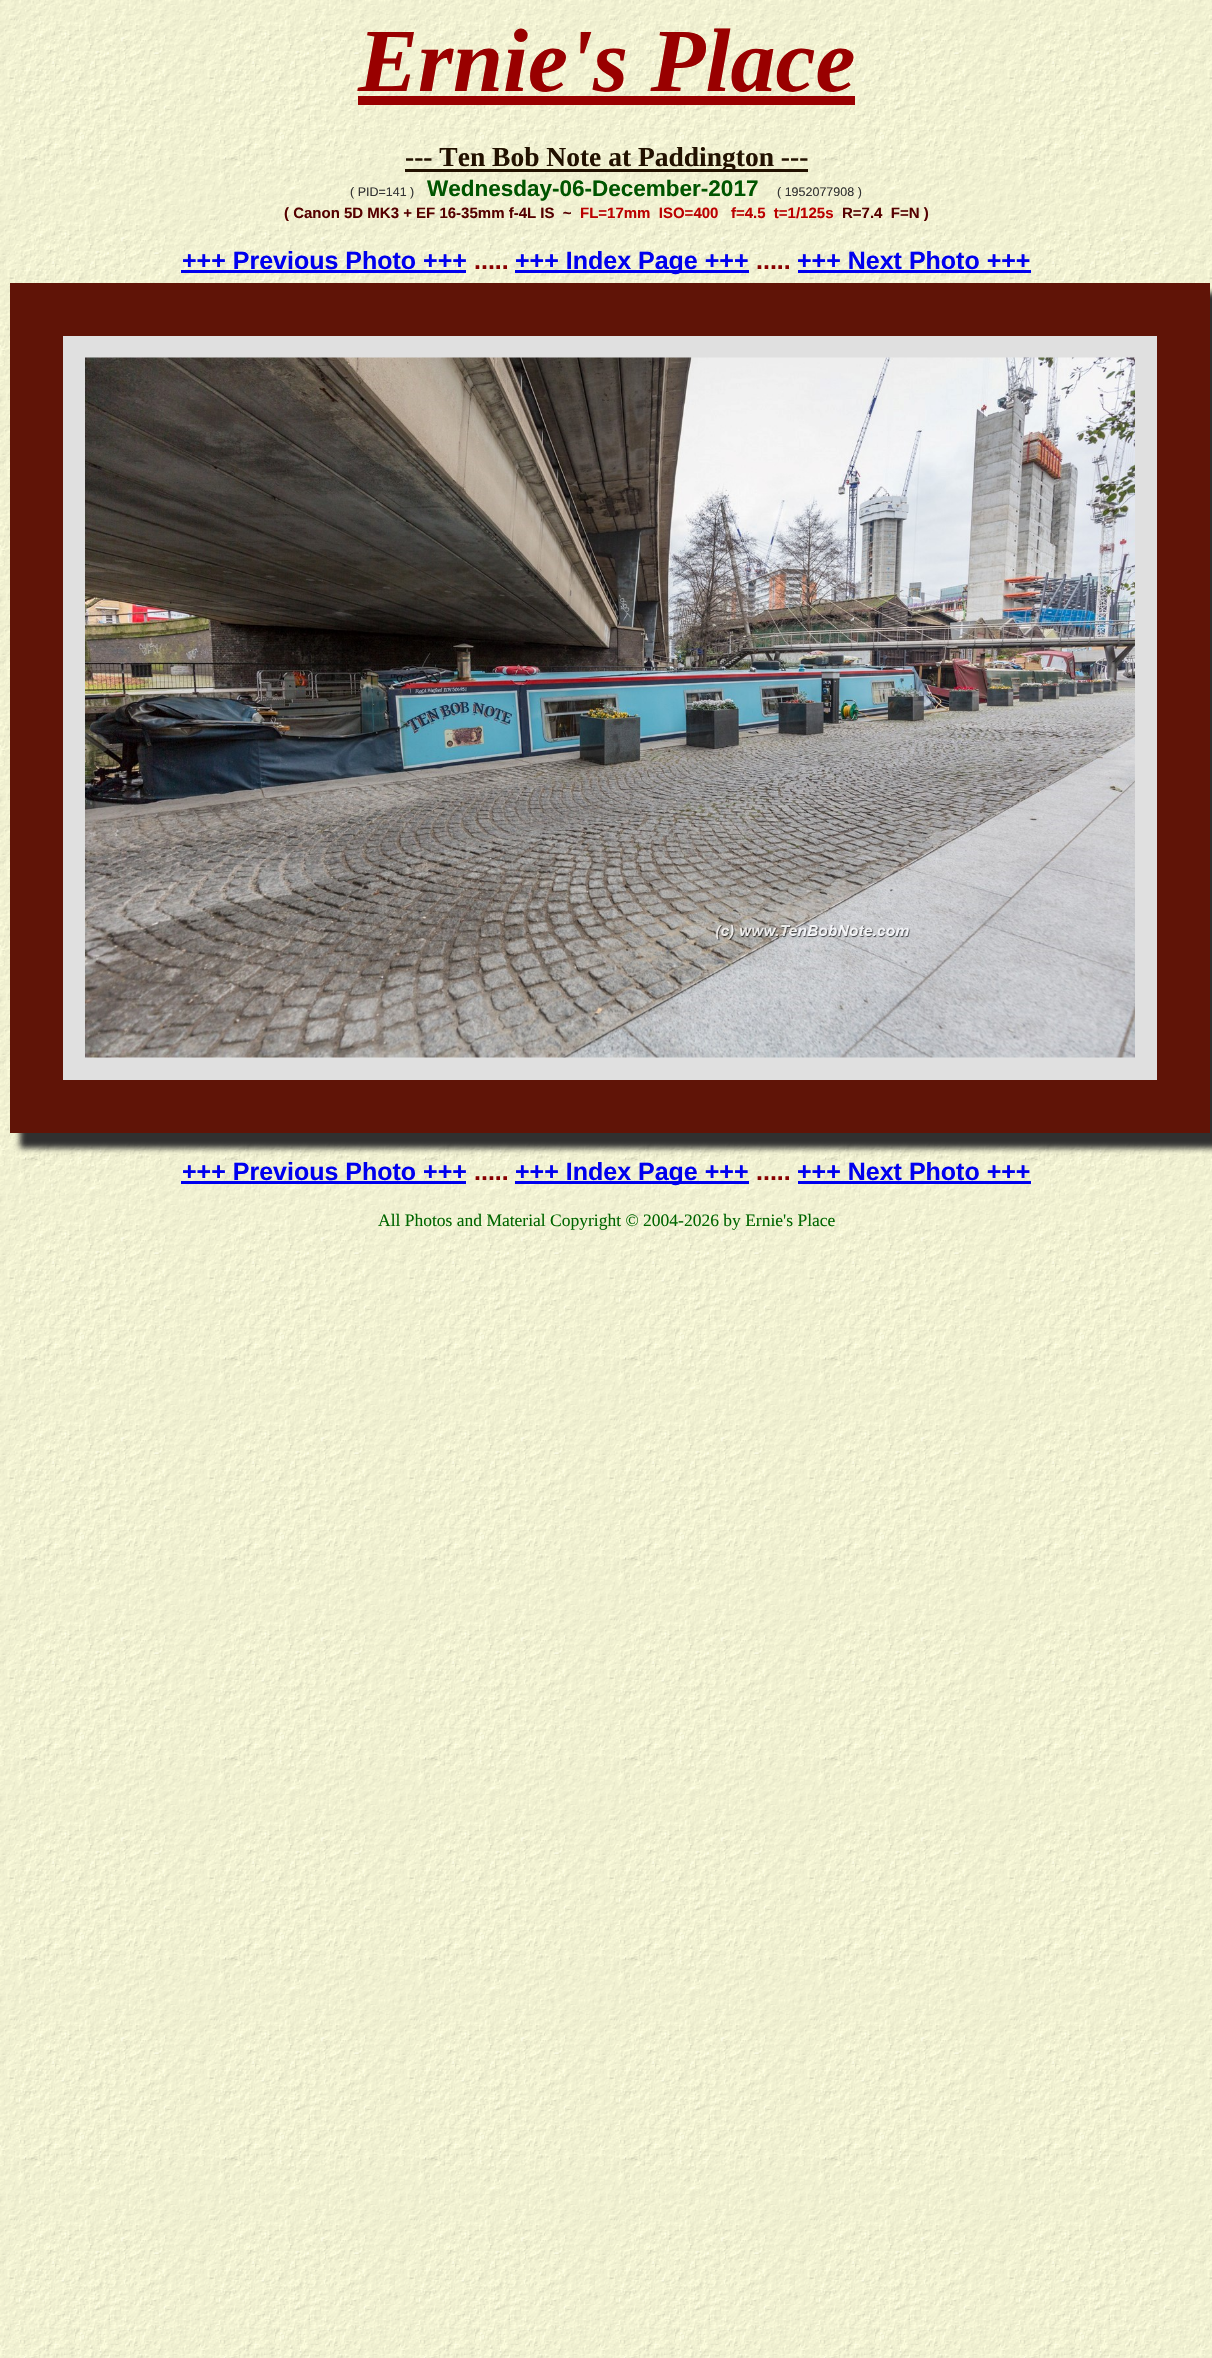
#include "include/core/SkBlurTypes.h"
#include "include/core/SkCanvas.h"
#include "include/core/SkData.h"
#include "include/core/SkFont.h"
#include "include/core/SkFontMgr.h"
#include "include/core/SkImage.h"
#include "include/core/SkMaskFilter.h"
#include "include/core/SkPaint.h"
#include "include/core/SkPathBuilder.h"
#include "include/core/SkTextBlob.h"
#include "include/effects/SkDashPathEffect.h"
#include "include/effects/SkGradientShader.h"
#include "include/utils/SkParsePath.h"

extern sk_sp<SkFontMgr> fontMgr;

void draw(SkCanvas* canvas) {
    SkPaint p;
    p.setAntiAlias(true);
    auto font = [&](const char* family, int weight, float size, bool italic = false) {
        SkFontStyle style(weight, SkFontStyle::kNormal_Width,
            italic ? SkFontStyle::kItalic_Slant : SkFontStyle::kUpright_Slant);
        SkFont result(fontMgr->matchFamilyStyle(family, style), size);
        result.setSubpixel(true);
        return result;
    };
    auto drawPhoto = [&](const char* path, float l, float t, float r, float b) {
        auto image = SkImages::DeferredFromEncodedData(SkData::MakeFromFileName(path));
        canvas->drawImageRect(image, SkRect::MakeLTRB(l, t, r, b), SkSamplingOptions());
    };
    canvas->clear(0xFFFFFFFF);
    drawPhoto("media/1.png", 0, 0, 1212, 2358);
    auto font1 = font("Liberation Serif", 700, 90, true);
    p.setColor(0xFF990000);
    canvas->drawString("Ernie's Place", 358, 91, font1, p);
    canvas->drawRect(SkRect::MakeLTRB(358, 96, 855, 105), p);
    p.setColor(0xFF221100);
    canvas->drawRect(SkRect::MakeLTRB(405, 169, 808, 172), p);
    auto font2 = font("Liberation Serif", 700, 27.5f);
    canvas->drawString("--- Ten Bob Note at Paddington ---", 405, 166, font2, p);
    auto font3 = font("Liberation Sans", 400, 12.5f);
    p.setColor(0xFF333333);
    canvas->drawString("( PID=141 )", 350, 196, font3, p);
    auto font4 = font("Liberation Sans", 700, 22.5f);
    p.setColor(0xFF005500);
    canvas->drawString("Wednesday-06-December-2017", 427, 196, font4, p);
    p.setColor(0xFF333333);
    canvas->drawString("( 1952077908 )", 777, 196, font3, p);
    auto font5 = font("Liberation Sans", 700, 15);
    p.setColor(0xFF550000);
    canvas->drawString("( Canon 5D MK3 + EF 16-35mm f-4L IS  ~", 284, 218, font5, p);
    p.setColor(0xFFBB0000);
    canvas->drawString("FL=17mm  ISO=400   f=4.5  t=1/125s", 580, 218, font5, p);
    p.setColor(0xFF550000);
    canvas->drawString("R=7.4  F=N )", 842, 218, font5, p);
    auto font6 = font("Liberation Sans", 700, 25);
    p.setColor(0xFF0000EE);
    canvas->drawString("+++ Previous Photo +++", 182, 269, font6, p);
    canvas->drawRect(SkRect::MakeLTRB(181, 270, 466, 273), p);
    p.setColor(0xFF880000);
    canvas->drawString(".....", 474, 269, font6, p);
    p.setColor(0xFF0000EE);
    canvas->drawRect(SkRect::MakeLTRB(515, 270, 749, 273), p);
    canvas->drawString("+++ Index Page +++", 515, 269, font6, p);
    p.setColor(0xFF880000);
    canvas->drawString(".....", 756, 269, font6, p);
    p.setColor(0xFF0000EE);
    canvas->drawString("+++ Next Photo +++", 797, 269, font6, p);
    canvas->drawRect(SkRect::MakeLTRB(798, 270, 1031, 273), p);
    p.setColor(0xFF303030);
    p.setMaskFilter(SkMaskFilter::MakeBlur(kNormal_SkBlurStyle, 3));
    canvas->drawRect(SkRect::MakeLTRB(20, 293, 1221, 1148), p);
    p.setMaskFilter(nullptr);
    p.setColor(0xFFE0E0E0);
    canvas->drawRect(SkRect::MakeLTRB(36.5f, 309.5f, 1183.5f, 1106.5f), p);
    p.setStyle(SkPaint::kStroke_Style);
    p.setStrokeWidth(53);
    p.setColor(0xFF601407);
    canvas->drawRect(SkRect::MakeLTRB(36.5f, 309.5f, 1183.5f, 1106.5f), p);
    drawPhoto("media/2.png", 85, 357, 1135, 1058);
    p.setStyle(SkPaint::kFill_Style);
    p.setColor(0xFF0000EE);
    canvas->drawString("+++ Previous Photo +++", 182, 1180, font6, p);
    canvas->drawRect(SkRect::MakeLTRB(181, 1181, 466, 1184), p);
    p.setColor(0xFF880000);
    canvas->drawString(".....", 474, 1180, font6, p);
    p.setColor(0xFF0000EE);
    canvas->drawRect(SkRect::MakeLTRB(515, 1181, 749, 1184), p);
    canvas->drawString("+++ Index Page +++", 515, 1180, font6, p);
    p.setColor(0xFF880000);
    canvas->drawString(".....", 756, 1180, font6, p);
    p.setColor(0xFF0000EE);
    canvas->drawString("+++ Next Photo +++", 797, 1180, font6, p);
    canvas->drawRect(SkRect::MakeLTRB(798, 1181, 1031, 1184), p);
    auto font7 = font("Liberation Serif", 400, 17.5f);
    p.setColor(0xFF006600);
    canvas->drawString("All Photos and Material Copyright © 2004-2026 by Ernie's Place", 378, 1226, font7, p);
}
